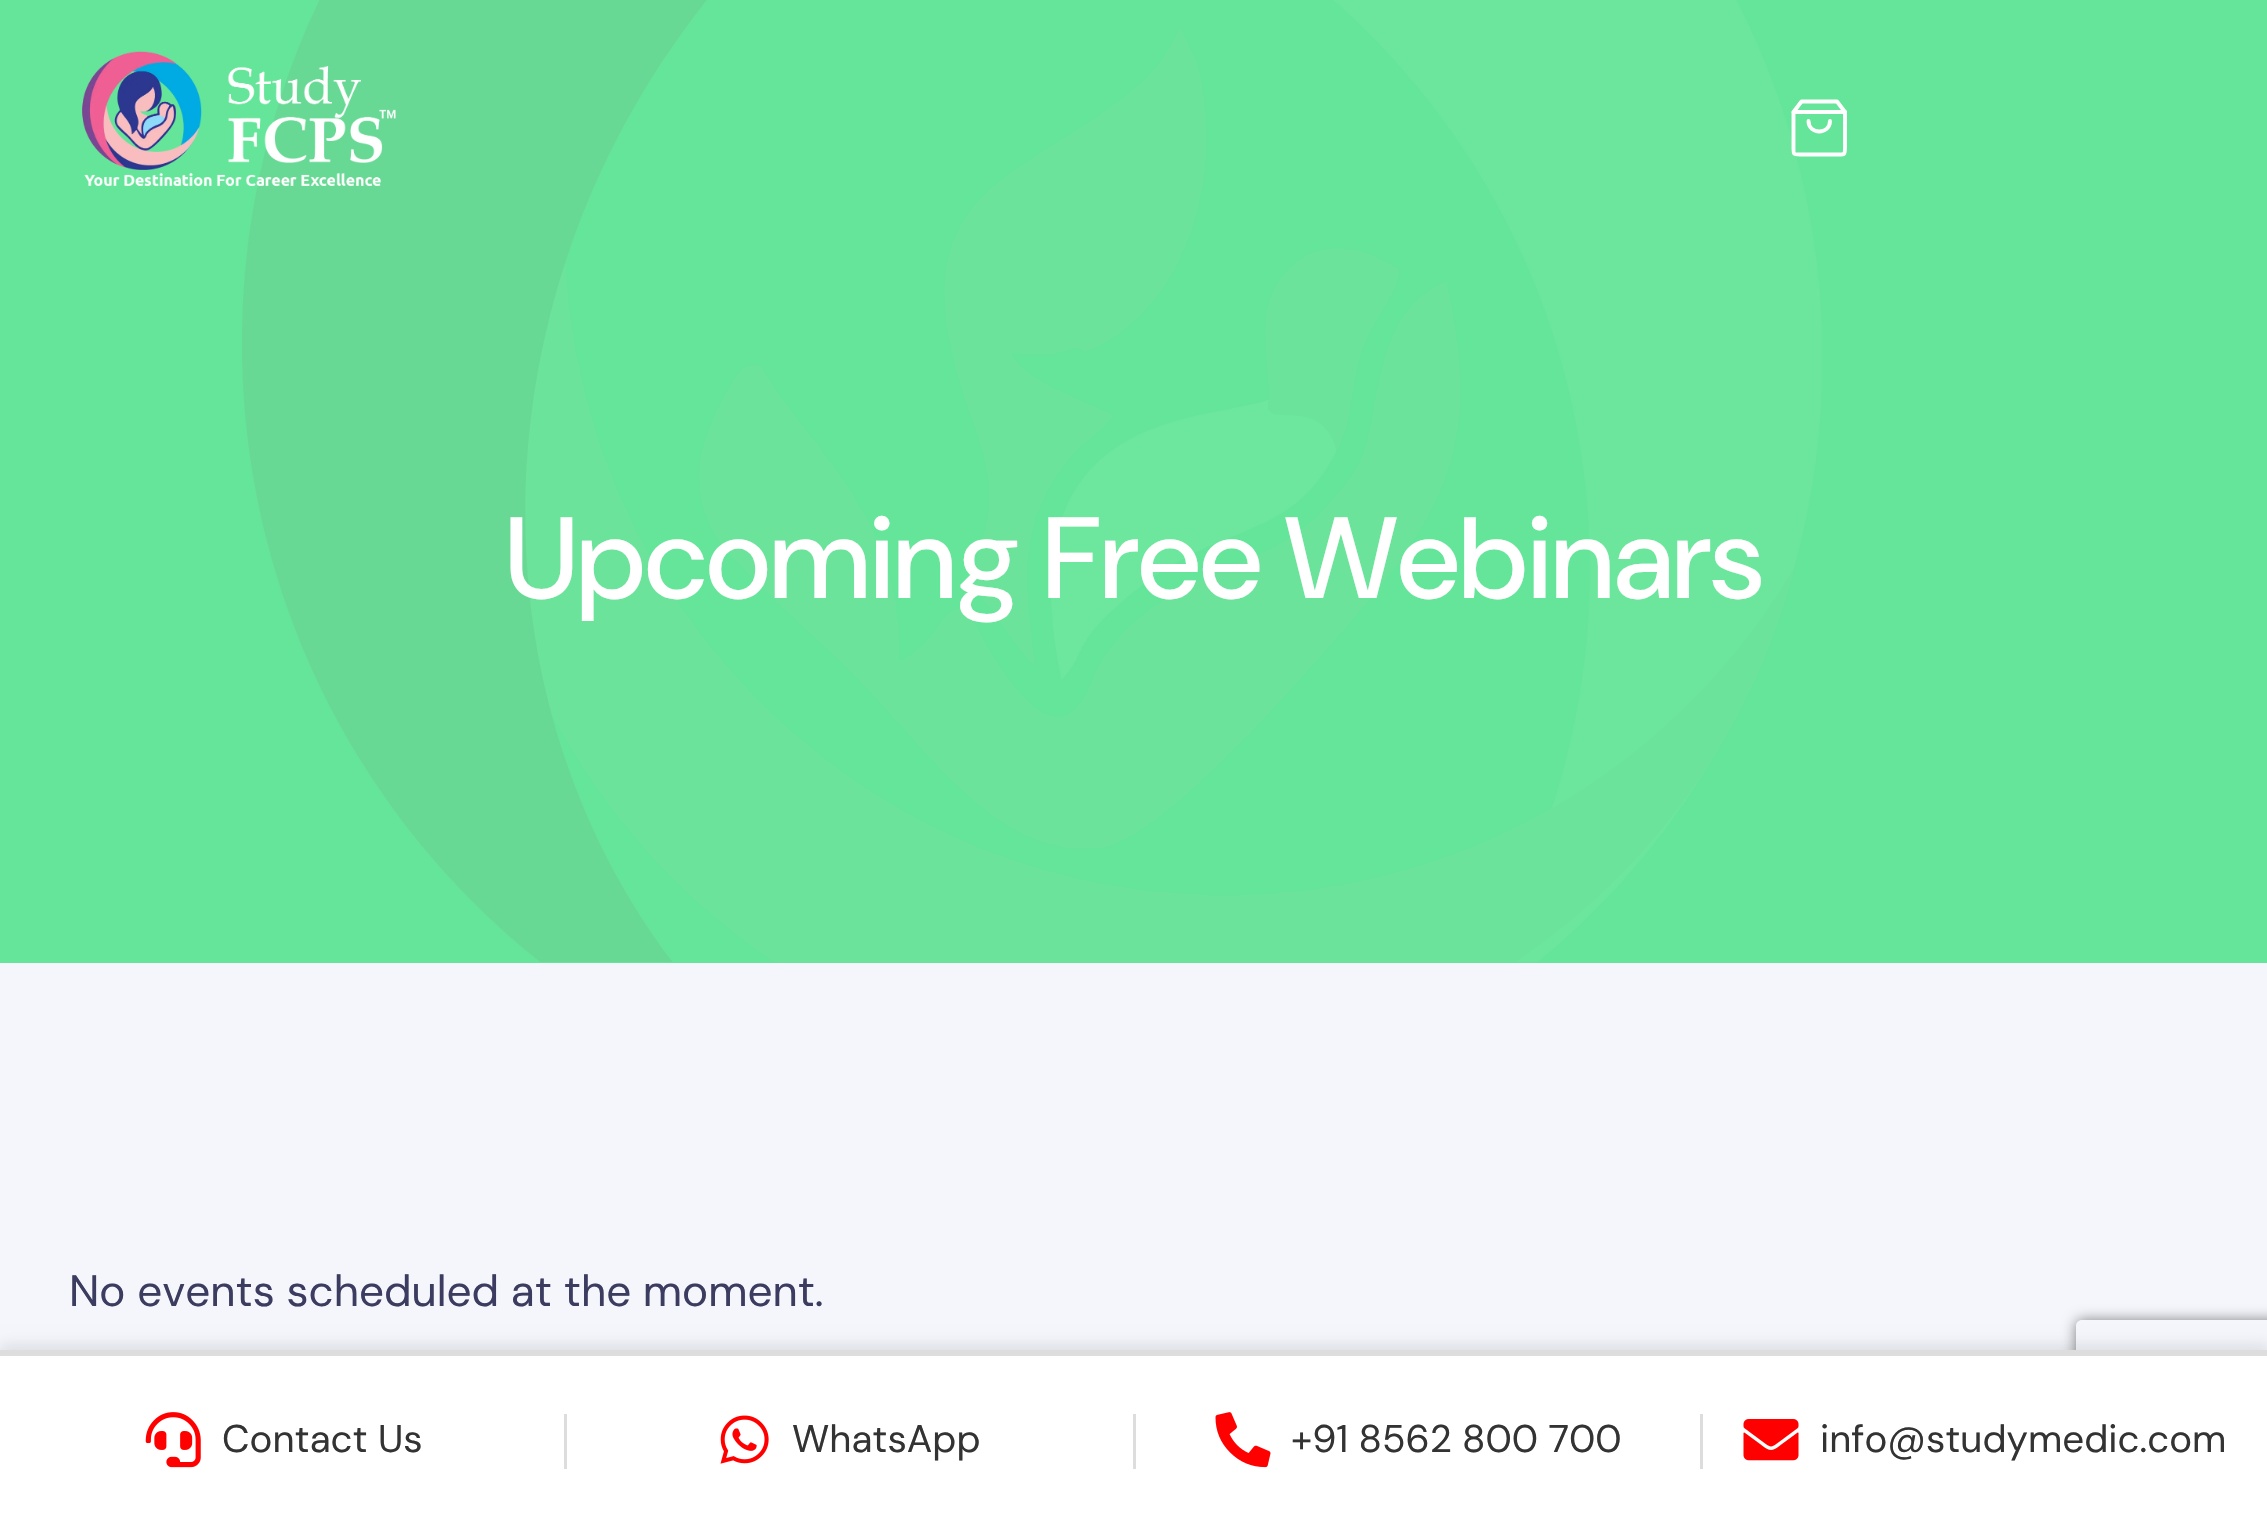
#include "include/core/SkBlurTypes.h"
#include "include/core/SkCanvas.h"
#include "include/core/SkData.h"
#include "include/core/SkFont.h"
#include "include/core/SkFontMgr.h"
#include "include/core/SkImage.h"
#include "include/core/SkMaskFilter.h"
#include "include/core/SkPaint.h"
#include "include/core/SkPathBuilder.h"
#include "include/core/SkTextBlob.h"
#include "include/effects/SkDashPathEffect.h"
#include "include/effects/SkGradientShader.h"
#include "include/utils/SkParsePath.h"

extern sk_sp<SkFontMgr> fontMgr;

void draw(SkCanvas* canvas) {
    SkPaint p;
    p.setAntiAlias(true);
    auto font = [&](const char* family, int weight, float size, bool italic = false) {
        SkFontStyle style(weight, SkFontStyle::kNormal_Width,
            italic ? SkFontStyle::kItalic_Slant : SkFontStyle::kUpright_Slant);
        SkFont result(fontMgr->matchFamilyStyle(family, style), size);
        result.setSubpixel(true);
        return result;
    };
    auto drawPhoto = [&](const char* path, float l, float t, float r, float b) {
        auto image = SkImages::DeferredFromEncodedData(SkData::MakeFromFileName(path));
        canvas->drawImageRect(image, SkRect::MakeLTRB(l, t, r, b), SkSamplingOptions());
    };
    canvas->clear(0xFFF4F6FC);
    p.setColor(0xFF65E599);
    canvas->drawRect(SkRect::MakeLTRB(0, 0, 2267, 963), p);
    drawPhoto("media/2.png", 242, 0, 1822, 962);
    drawPhoto("media/1.png", 82, 51, 396, 186);
    p.setStyle(SkPaint::kStroke_Style);
    p.setStrokeWidth(3.9f);
    p.setStrokeJoin(SkPaint::kRound_Join);
    p.setColor(0xFFFFFFFF);
    canvas->drawPath(SkPathBuilder().moveTo(1793.5f, 112).lineTo(1793.5f, 145).cubicTo(1793.5f, 156, 1792.5f, 154.5f, 1804, 154.5f).lineTo(1834.5f, 154.5f).cubicTo(1845.5f, 154.5f, 1845, 156, 1845, 145).lineTo(1845, 112).close().detach(), p);
    p.setStrokeCap(SkPaint::kRound_Cap);
    canvas->drawPath(SkPathBuilder().moveTo(1845, 112).lineTo(1837, 101.5f).lineTo(1801.5f, 101.5f).lineTo(1793.5f, 112).moveTo(1830, 121).cubicTo(1830, 135, 1808.5f, 135, 1808.5f, 121).detach(), p);
    auto font1 = font("DM Sans", 500, 115.5f);
    p.setStyle(SkPaint::kFill_Style);
    canvas->drawString("Upcoming Free Webinars", 506, 598, font1, p);
    auto font2 = font("DM Sans", 400, 44);
    p.setColor(0xFF3C3B60);
    canvas->drawString("No events scheduled at the moment.", 69, 1306, font2, p);
    canvas->save();
    canvas->clipPath(SkPathBuilder(SkPathFillType::kEvenOdd).moveTo(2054, 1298).lineTo(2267, 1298).lineTo(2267, 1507).lineTo(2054, 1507).close().moveTo(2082, 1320).lineTo(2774, 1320).cubicTo(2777.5f, 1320, 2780, 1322.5f, 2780, 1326).lineTo(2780, 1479).cubicTo(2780, 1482.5f, 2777.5f, 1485, 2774, 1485).lineTo(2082, 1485).cubicTo(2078.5f, 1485, 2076, 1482.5f, 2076, 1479).lineTo(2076, 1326).cubicTo(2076, 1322.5f, 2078.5f, 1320, 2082, 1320).close().detach(), true);
    p.setColor(0xFF808080);
    p.setMaskFilter(SkMaskFilter::MakeBlur(kNormal_SkBlurStyle, 7));
    canvas->drawRoundRect(SkRect::MakeLTRB(2076, 1320, 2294, 1485), 6, 6, p);
    p.setMaskFilter(nullptr);
    canvas->restore();
    p.setColor(0x1A000000);
    p.setMaskFilter(SkMaskFilter::MakeBlur(kNormal_SkBlurStyle, 7));
    canvas->drawRect(SkRect::MakeLTRB(0, 1345, 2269, 1518), p);
    p.setMaskFilter(nullptr);
    p.setColor(0xFFFFFFFF);
    canvas->drawRect(SkRect::MakeLTRB(0, 1356, 2267, 1523), p);
    p.setColor(0xFFDDDDDD);
    canvas->drawRect(SkRect::MakeLTRB(0, 1350, 2267, 1356), p);
    drawPhoto("media/3.png", 145, 1412, 201, 1468);
    auto font3 = font("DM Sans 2", 400, 38.5f);
    p.setColor(0xFF333333);
    canvas->drawString("Contact Us", 222, 1452, font3, p);
    p.setColor(0xFFDDDDDD);
    canvas->drawRect(SkRect::MakeLTRB(564, 1414, 567, 1469), p);
    drawPhoto("media/4.png", 720, 1415, 769, 1464);
    p.setColor(0xFF333333);
    canvas->drawString("WhatsApp", 792, 1452, font3, p);
    p.setColor(0xFFDDDDDD);
    canvas->drawRect(SkRect::MakeLTRB(1133, 1414, 1136, 1469), p);
    drawPhoto("media/5.png", 1215, 1412, 1271, 1468);
    p.setColor(0xFF333333);
    canvas->drawString("+91 8562 800 700", 1291, 1452, font3, p);
    p.setColor(0xFFDDDDDD);
    canvas->drawRect(SkRect::MakeLTRB(1700, 1414, 1703, 1469), p);
    drawPhoto("media/6.png", 1743, 1419, 1799, 1461);
    p.setColor(0xFF333333);
    canvas->drawString("info@studymedic.com", 1820, 1452, font3, p);
}
